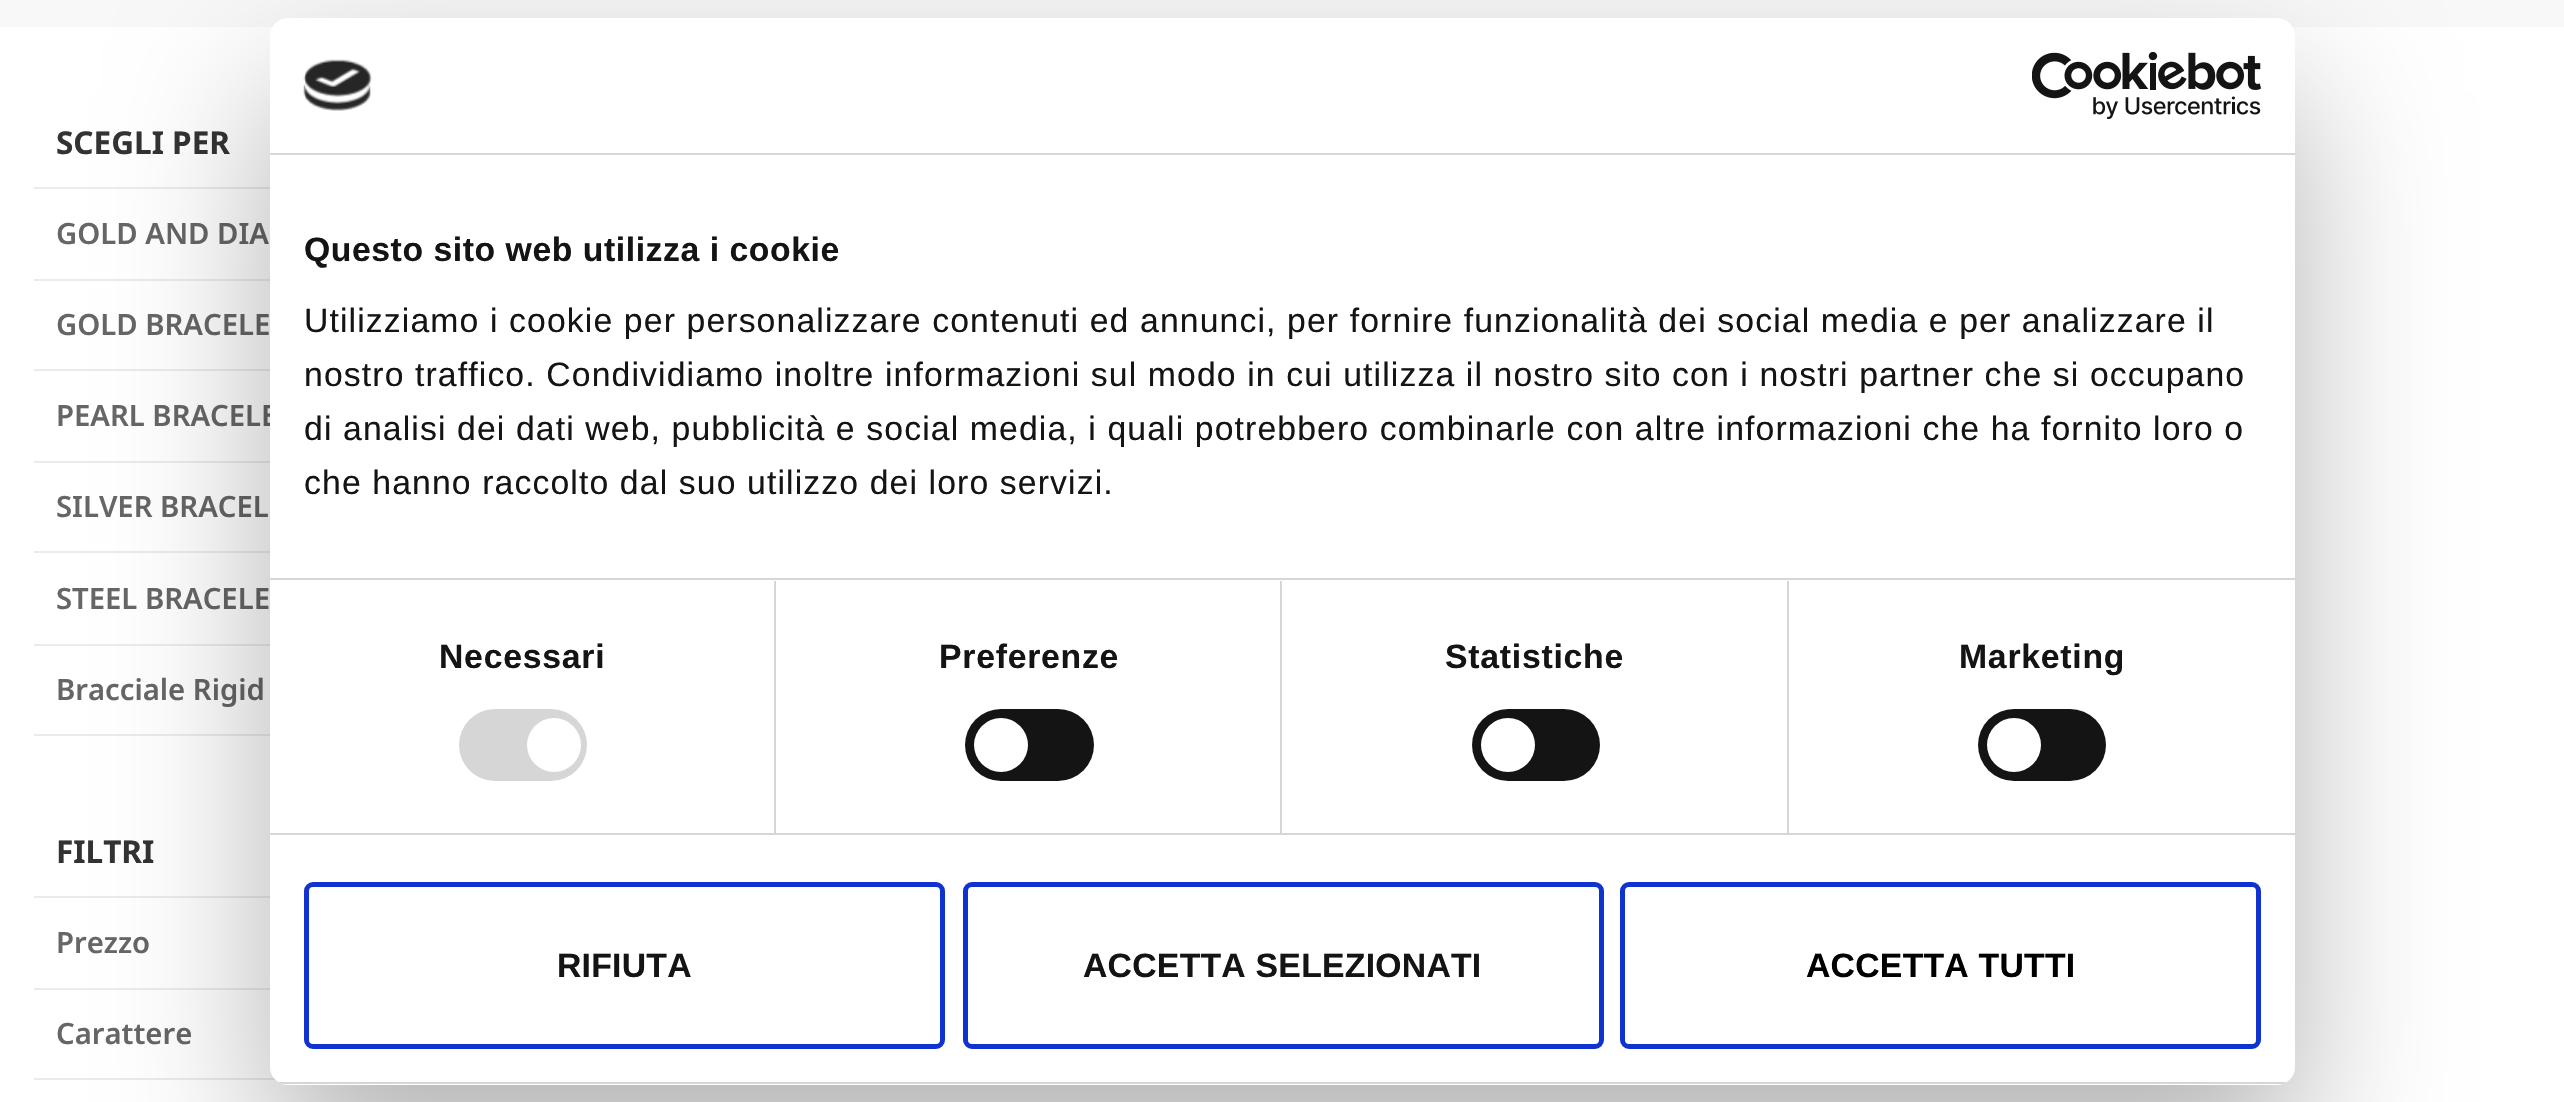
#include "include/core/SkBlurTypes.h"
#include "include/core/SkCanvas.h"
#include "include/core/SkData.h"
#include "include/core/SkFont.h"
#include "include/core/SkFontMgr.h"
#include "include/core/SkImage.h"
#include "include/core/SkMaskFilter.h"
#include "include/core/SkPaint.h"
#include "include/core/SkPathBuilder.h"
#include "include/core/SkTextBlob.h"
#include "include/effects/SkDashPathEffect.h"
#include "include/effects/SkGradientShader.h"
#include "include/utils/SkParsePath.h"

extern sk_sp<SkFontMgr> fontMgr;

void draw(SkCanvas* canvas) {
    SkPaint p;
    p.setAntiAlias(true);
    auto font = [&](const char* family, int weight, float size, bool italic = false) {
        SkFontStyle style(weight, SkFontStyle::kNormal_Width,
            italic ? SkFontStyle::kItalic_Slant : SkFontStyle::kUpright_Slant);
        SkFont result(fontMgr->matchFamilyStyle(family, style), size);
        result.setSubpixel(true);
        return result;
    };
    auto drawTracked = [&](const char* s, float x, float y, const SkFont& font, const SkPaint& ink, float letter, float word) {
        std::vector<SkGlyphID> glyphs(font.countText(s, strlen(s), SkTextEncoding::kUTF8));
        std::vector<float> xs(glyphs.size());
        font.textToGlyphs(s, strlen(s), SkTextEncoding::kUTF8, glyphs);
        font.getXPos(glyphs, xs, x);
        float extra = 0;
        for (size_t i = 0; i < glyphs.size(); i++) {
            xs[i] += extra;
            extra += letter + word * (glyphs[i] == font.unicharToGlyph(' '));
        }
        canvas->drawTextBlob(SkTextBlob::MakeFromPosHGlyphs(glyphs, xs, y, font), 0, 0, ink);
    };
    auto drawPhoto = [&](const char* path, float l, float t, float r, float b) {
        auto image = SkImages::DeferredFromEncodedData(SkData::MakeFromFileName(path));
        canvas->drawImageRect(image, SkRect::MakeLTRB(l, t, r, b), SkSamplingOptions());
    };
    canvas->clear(0xFFFFFFFF);
    p.setColor(0xFFF8F8F8);
    canvas->drawRect(SkRect::MakeLTRB(0, 0, 2564, 27), p);
    p.setColor(0xFFEBEBEB);
    canvas->drawRect(SkRect::MakeLTRB(34, 187, 270, 189), p);
    auto font1 = font("Noto Sans", 700, 31.5f);
    p.setColor(0xFF333333);
    canvas->drawString("SCEGLI PER", 56, 154, font1, p);
    p.setColor(0xFFEBEBEB);
    canvas->drawRect(SkRect::MakeLTRB(34, 279, 270, 281), p);
    auto font2 = font("Noto Sans", 600, 29.25f);
    p.setColor(0xFF666666);
    canvas->drawString("GOLD AND DIA", 56, 244, font2, p);
    p.setColor(0xFFEBEBEB);
    canvas->drawRect(SkRect::MakeLTRB(34, 369, 270, 371), p);
    p.setColor(0xFF666666);
    canvas->drawString("GOLD BRACELE", 56, 335, font2, p);
    p.setColor(0xFFEBEBEB);
    canvas->drawRect(SkRect::MakeLTRB(34, 461, 270, 463), p);
    p.setColor(0xFF666666);
    canvas->drawString("PEARL BRACELE", 56, 426, font2, p);
    p.setColor(0xFFEBEBEB);
    canvas->drawRect(SkRect::MakeLTRB(34, 551, 270, 553), p);
    p.setColor(0xFF666666);
    canvas->drawString("SILVER BRACEL", 56, 517, font2, p);
    p.setColor(0xFFEBEBEB);
    canvas->drawRect(SkRect::MakeLTRB(34, 644, 270, 646), p);
    p.setColor(0xFF666666);
    canvas->drawString("STEEL BRACELE", 56, 609, font2, p);
    p.setColor(0xFFEBEBEB);
    canvas->drawRect(SkRect::MakeLTRB(34, 734, 270, 736), p);
    p.setColor(0xFF666666);
    canvas->drawString("Bracciale Rigid", 56, 700, font2, p);
    p.setColor(0xFFEBEBEB);
    canvas->drawRect(SkRect::MakeLTRB(34, 896, 270, 898), p);
    p.setColor(0xFF333333);
    canvas->drawString("FILTRI", 56, 863, font1, p);
    p.setColor(0xFFEBEBEB);
    canvas->drawRect(SkRect::MakeLTRB(34, 988, 270, 990), p);
    p.setColor(0xFF666666);
    canvas->drawString("Prezzo", 56, 953, font2, p);
    p.setColor(0xFFEBEBEB);
    canvas->drawRect(SkRect::MakeLTRB(34, 1078, 276, 1080), p);
    p.setColor(0xFF666666);
    canvas->drawString("Carattere", 56, 1044, font2, p);
    p.setColor(0x4D000000);
    p.setMaskFilter(SkMaskFilter::MakeBlur(kNormal_SkBlurStyle, 76.5f));
    canvas->drawRoundRect(SkRect::MakeLTRB(270, 90, 2295, 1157), 18, 18, p);
    p.setMaskFilter(nullptr);
    p.setColor(0xFFFFFFFF);
    canvas->drawRoundRect(SkRect::MakeLTRB(270, 18, 2295, 1085), 18, 18, p);
    p.setColor(0xFFD6D6D6);
    canvas->drawRect(SkRect::MakeLTRB(270, 153, 2295, 155), p);
    drawPhoto("media/1.png", 303, 59, 372, 111);
    drawPhoto("media/2.png", 2032, 52, 2261, 119);
    canvas->drawRect(SkRect::MakeLTRB(270, 578, 2295, 580), p);
    auto font3 = font("Liberation Sans", 700, 33.75f);
    p.setColor(0xFF141414);
    drawTracked("Questo sito web utilizza i cookie", 304, 261, font3, p, 0.55f, 0);
    auto font4 = font("Liberation Sans", 400, 33.75f);
    {
        const struct { const char* s; float x, y; } items[] = {
            {"Utilizziamo i cookie per personalizzare contenuti ed annunci, per fornire funzionalità dei social media e per analizzare il", 304, 332},
            {"nostro traffico. Condividiamo inoltre informazioni sul modo in cui utilizza il nostro sito con i nostri partner che si occupano", 304, 386},
            {"di analisi dei dati web, pubblicità e social media, i quali potrebbero combinarle con altre informazioni che ha fornito loro o", 304, 440},
            {"che hanno raccolto dal suo utilizzo dei loro servizi.", 304, 494},
        };
        for (auto [s, x, y] : items) {
            drawTracked(s, x, y, font4, p, 1.12f, 0);
        }
    }
    p.setColor(0xFFD6D6D6);
    canvas->drawRect(SkRect::MakeLTRB(270, 833, 2295, 835), p);
    canvas->drawRect(SkRect::MakeLTRB(774, 581, 776, 833), p);
    p.setColor(0xFF141414);
    drawTracked("Necessari", 439, 668, font3, p, 0.75f, 0);
    p.setColor(0xFFD6D6D6);
    canvas->drawRoundRect(SkRect::MakeLTRB(459, 709, 587, 781), 36, 36, p);
    p.setColor(0xFFFFFFFF);
    canvas->drawCircle(554, 745, 27, p);
    p.setColor(0xFFD6D6D6);
    canvas->drawRect(SkRect::MakeLTRB(1280, 581, 1282, 833), p);
    p.setColor(0xFF141414);
    drawTracked("Preferenze", 939, 668, font3, p, 0.75f, 0);
    canvas->drawRoundRect(SkRect::MakeLTRB(965, 709, 1094, 781), 36, 36, p);
    p.setColor(0xFFFFFFFF);
    canvas->drawCircle(1001, 745, 27, p);
    p.setColor(0xFFD6D6D6);
    canvas->drawRect(SkRect::MakeLTRB(1787, 581, 1789, 833), p);
    p.setColor(0xFF141414);
    drawTracked("Statistiche", 1445, 668, font3, p, 0.75f, 0);
    canvas->drawRoundRect(SkRect::MakeLTRB(1472, 709, 1600, 781), 36, 36, p);
    p.setColor(0xFFFFFFFF);
    canvas->drawCircle(1508, 745, 27, p);
    p.setColor(0xFF141414);
    drawTracked("Marketing", 1959, 668, font3, p, 0.75f, 0);
    canvas->drawRoundRect(SkRect::MakeLTRB(1978, 709, 2106, 781), 36, 36, p);
    p.setColor(0xFFFFFFFF);
    canvas->drawCircle(2014, 745, 27, p);
    canvas->save();
    canvas->clipPath(SkPathBuilder().moveTo(288, 18).lineTo(2277, 18).cubicTo(2287, 18, 2295, 26, 2295, 36).lineTo(2295, 1067).cubicTo(2295, 1077, 2287, 1085, 2277, 1085).lineTo(288, 1085).cubicTo(278, 1085, 270, 1077, 270, 1067).lineTo(270, 36).cubicTo(270, 26, 278, 18, 288, 18).close().detach(), true);
    p.setColor(0xFFD6D6D6);
    canvas->drawRect(SkRect::MakeLTRB(270, 1082, 2295, 1084), p);
    canvas->restore();
    p.setStyle(SkPaint::kStroke_Style);
    p.setStrokeWidth(5);
    p.setColor(0xFF1032CF);
    canvas->drawRoundRect(SkRect::MakeLTRB(306.5f, 884.5f, 942.5f, 1046.5f), 6.5f, 6.5f, p);
    p.setStyle(SkPaint::kFill_Style);
    p.setColor(0xFF141414);
    drawTracked("RIFIUTA", 557, 977, font3, p, 0.25f, 0);
    p.setStyle(SkPaint::kStroke_Style);
    p.setColor(0xFF1032CF);
    canvas->drawRoundRect(SkRect::MakeLTRB(965.5f, 884.5f, 1601.5f, 1046.5f), 6.5f, 6.5f, p);
    p.setStyle(SkPaint::kFill_Style);
    p.setColor(0xFF141414);
    drawTracked("ACCETTA SELEZIONATI", 1083, 977, font3, p, 0.25f, 0);
    p.setStyle(SkPaint::kStroke_Style);
    p.setColor(0xFF1032CF);
    canvas->drawRoundRect(SkRect::MakeLTRB(1622.5f, 884.5f, 2258.5f, 1046.5f), 6.5f, 6.5f, p);
    p.setStyle(SkPaint::kFill_Style);
    p.setColor(0xFF000000);
    drawTracked("ACCETTA TUTTI", 1806, 977, font3, p, 0.25f, 0);
}
